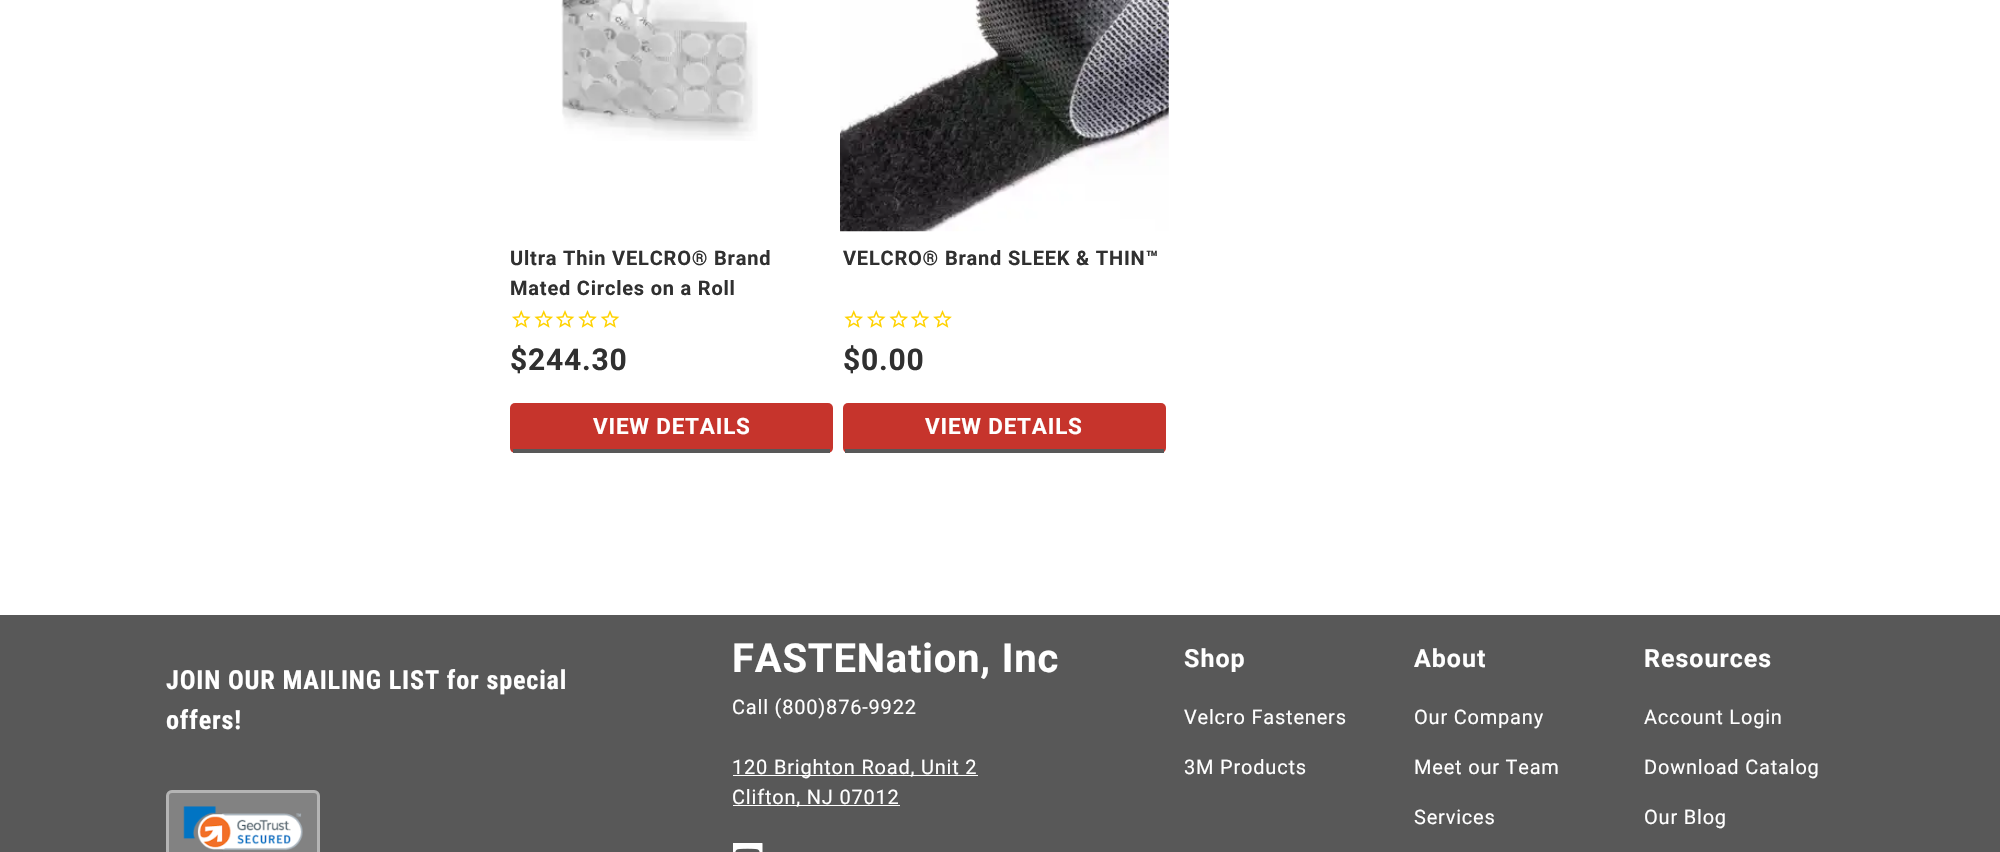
#include "include/core/SkBlurTypes.h"
#include "include/core/SkCanvas.h"
#include "include/core/SkData.h"
#include "include/core/SkFont.h"
#include "include/core/SkFontMgr.h"
#include "include/core/SkImage.h"
#include "include/core/SkMaskFilter.h"
#include "include/core/SkPaint.h"
#include "include/core/SkPathBuilder.h"
#include "include/core/SkTextBlob.h"
#include "include/effects/SkDashPathEffect.h"
#include "include/effects/SkGradientShader.h"
#include "include/utils/SkParsePath.h"

extern sk_sp<SkFontMgr> fontMgr;

void draw(SkCanvas* canvas) {
    SkPaint p;
    p.setAntiAlias(true);
    auto font = [&](const char* family, int weight, float size, bool italic = false) {
        SkFontStyle style(weight, SkFontStyle::kNormal_Width,
            italic ? SkFontStyle::kItalic_Slant : SkFontStyle::kUpright_Slant);
        SkFont result(fontMgr->matchFamilyStyle(family, style), size);
        result.setSubpixel(true);
        return result;
    };
    auto drawTracked = [&](const char* s, float x, float y, const SkFont& font, const SkPaint& ink, float letter, float word) {
        std::vector<SkGlyphID> glyphs(font.countText(s, strlen(s), SkTextEncoding::kUTF8));
        std::vector<float> xs(glyphs.size());
        font.textToGlyphs(s, strlen(s), SkTextEncoding::kUTF8, glyphs);
        font.getXPos(glyphs, xs, x);
        float extra = 0;
        for (size_t i = 0; i < glyphs.size(); i++) {
            xs[i] += extra;
            extra += letter + word * (glyphs[i] == font.unicharToGlyph(' '));
        }
        canvas->drawTextBlob(SkTextBlob::MakeFromPosHGlyphs(glyphs, xs, y, font), 0, 0, ink);
    };
    auto drawPhoto = [&](const char* path, float l, float t, float r, float b) {
        auto image = SkImages::DeferredFromEncodedData(SkData::MakeFromFileName(path));
        canvas->drawImageRect(image, SkRect::MakeLTRB(l, t, r, b), SkSamplingOptions());
    };
    canvas->clear(0xFFFFFFFF);
    drawPhoto("media/1.png", 561, 0, 758, 141);
    auto font1 = font("Roboto", 700, 20);
    p.setColor(0xFF303030);
    drawTracked("Ultra Thin VELCRO® Brand", 510, 265, font1, p, 0.8f, 0);
    drawTracked("Mated Circles on a Roll", 510, 295, font1, p, 0.8f, 0);
    drawPhoto("media/2.png", 512, 310, 531, 328);
    drawPhoto("media/3.png", 534, 310, 553, 328);
    drawPhoto("media/4.png", 555, 310, 575, 328);
    drawPhoto("media/5.png", 578, 310, 597, 328);
    drawPhoto("media/4.png", 600, 310, 620, 328);
    auto font2 = font("Roboto", 700, 30);
    drawTracked("$244.30", 510, 370, font2, p, 0.8f, 0);
    p.setColor(0xFFC6342C);
    canvas->drawRoundRect(SkRect::MakeLTRB(510, 403, 833, 453), 5, 5, p);
    p.setColor(0xFF585858);
    canvas->drawRect(SkRect::MakeLTRB(513, 449, 830, 453), p);
    auto font3 = font("Roboto", 700, 22.5f);
    p.setColor(0xFFFFFFFF);
    drawTracked("VIEW DETAILS", 593, 434, font3, p, 0.8f, 0);
    drawPhoto("media/6.png", 840, 0, 1169, 232);
    p.setColor(0xFF303030);
    drawTracked("VELCRO® Brand SLEEK & THIN™", 843, 265, font1, p, 0.8f, 0);
    drawPhoto("media/3.png", 844, 310, 863, 328);
    drawPhoto("media/2.png", 867, 310, 886, 328);
    drawPhoto("media/3.png", 889, 310, 908, 328);
    drawPhoto("media/4.png", 910, 310, 930, 328);
    drawPhoto("media/5.png", 933, 310, 952, 328);
    drawTracked("$0.00", 843, 370, font2, p, 0.8f, 0);
    p.setColor(0xFFC6342C);
    canvas->drawRoundRect(SkRect::MakeLTRB(843, 403, 1166, 453), 5, 5, p);
    p.setColor(0xFF585858);
    canvas->drawRect(SkRect::MakeLTRB(845, 449, 1164, 453), p);
    p.setColor(0xFFFFFFFF);
    drawTracked("VIEW DETAILS", 925, 434, font3, p, 0.8f, 0);
    p.setColor(0xFF585858);
    canvas->drawRect(SkRect::MakeLTRB(0, 615, 2000, 852), p);
    auto font4 = font("Roboto Condensed", 700, 26.25f);
    p.setColor(0xFFFFFFFF);
    drawTracked("JOIN OUR MAILING LIST for special", 166, 689, font4, p, 0.8f, 0);
    drawTracked("offers!", 166, 729, font4, p, 0.8f, 0);
    p.setColor(0xFF828282);
    canvas->drawRoundRect(SkRect::MakeLTRB(166, 790, 320, 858), 6, 6, p);
    p.setStyle(SkPaint::kStroke_Style);
    p.setStrokeWidth(3);
    p.setColor(0x66FFFFFF);
    canvas->drawRoundRect(SkRect::MakeLTRB(167.5f, 791.5f, 318.5f, 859.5f), 4.5f, 4.5f, p);
    drawPhoto("media/7.png", 183, 806, 303, 851);
    auto font5 = font("Roboto", 700, 40);
    p.setStyle(SkPaint::kFill_Style);
    p.setColor(0xFFFFFFFF);
    drawTracked("FASTENation, Inc", 732, 672, font5, p, 0.8f, 0);
    auto font6 = font("Roboto", 400, 20);
    drawTracked("Call (800)876-9922", 732, 714, font6, p, 0.8f, 0);
    canvas->drawRect(SkRect::MakeLTRB(733, 775, 978, 776), p);
    drawTracked("120 Brighton Road, Unit 2", 732, 774, font6, p, 0.8f, 0);
    canvas->drawRect(SkRect::MakeLTRB(733, 805, 900, 806), p);
    drawTracked("Clifton, NJ 07012", 732, 804, font6, p, 0.8f, 0);
    drawPhoto("media/8.png", 733, 843, 763, 852);
    auto font7 = font("Roboto", 700, 25);
    drawTracked("Shop", 1184, 667, font7, p, 1, 0);
    drawTracked("Velcro Fasteners", 1184, 724, font6, p, 0.8f, 0);
    drawTracked("3M Products", 1184, 774, font6, p, 0.8f, 0);
    drawTracked("About", 1414, 667, font7, p, 1, 0);
    {
        const struct { const char* s; float x, y; } items[] = {
            {"Our Company", 1414, 724},
            {"Meet our Team", 1414, 774},
            {"Services", 1414, 824},
        };
        for (auto [s, x, y] : items) {
            drawTracked(s, x, y, font6, p, 0.8f, 0);
        }
    }
    drawTracked("Resources", 1644, 667, font7, p, 1, 0);
    {
        const struct { const char* s; float x, y; } items[] = {
            {"Account Login", 1644, 724},
            {"Download Catalog", 1644, 774},
            {"Our Blog", 1644, 824},
        };
        for (auto [s, x, y] : items) {
            drawTracked(s, x, y, font6, p, 0.8f, 0);
        }
    }
}
